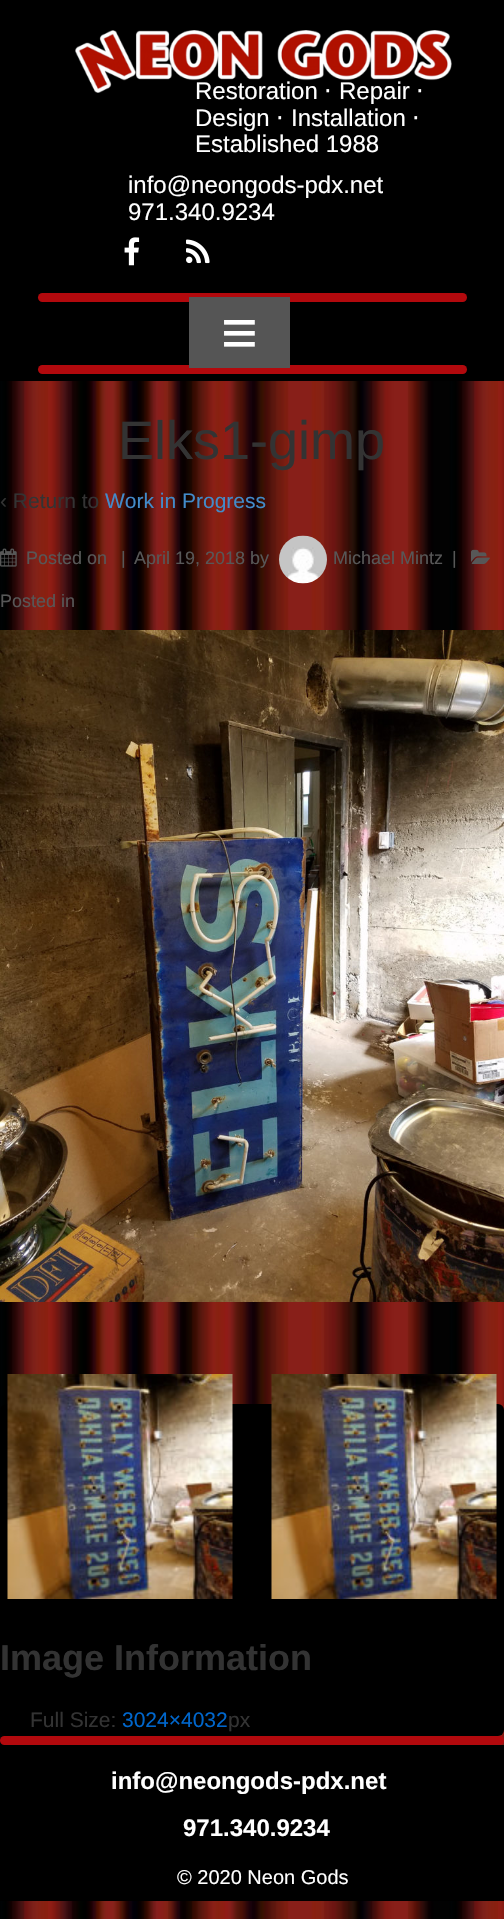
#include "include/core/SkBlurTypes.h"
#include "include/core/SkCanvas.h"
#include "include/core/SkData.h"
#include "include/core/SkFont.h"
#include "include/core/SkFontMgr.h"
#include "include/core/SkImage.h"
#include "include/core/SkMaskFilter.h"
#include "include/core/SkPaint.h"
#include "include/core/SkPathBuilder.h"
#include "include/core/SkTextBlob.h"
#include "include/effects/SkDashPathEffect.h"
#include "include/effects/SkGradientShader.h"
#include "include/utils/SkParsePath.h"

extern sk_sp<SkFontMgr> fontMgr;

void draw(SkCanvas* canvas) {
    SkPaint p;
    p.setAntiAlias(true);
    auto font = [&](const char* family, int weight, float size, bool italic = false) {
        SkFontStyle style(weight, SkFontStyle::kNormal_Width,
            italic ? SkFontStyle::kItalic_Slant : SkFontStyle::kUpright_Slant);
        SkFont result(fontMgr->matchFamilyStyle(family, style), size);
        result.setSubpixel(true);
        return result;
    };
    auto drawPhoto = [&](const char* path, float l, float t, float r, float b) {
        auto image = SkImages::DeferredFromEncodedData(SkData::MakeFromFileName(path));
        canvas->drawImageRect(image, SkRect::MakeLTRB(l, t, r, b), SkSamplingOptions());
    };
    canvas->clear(0xFFFFFFFF);
    drawPhoto("media/1.png", 0, 381, 504, 1919);
    p.setColor(0xFF000000);
    canvas->drawRect(SkRect::MakeLTRB(0, 0, 504, 381), p);
    drawPhoto("media/2.png", 75, 30, 452, 93);
    auto font1 = font("Liberation Sans", 400, 24);
    p.setColor(0xFFFFFFFF);
    canvas->drawString("Restoration", 195, 99, font1, p);
    auto font2 = font("DejaVu Sans", 400, 24);
    canvas->drawString("⋅", 324, 99, font2, p);
    canvas->drawString("Repair", 339, 99, font1, p);
    canvas->drawString("⋅", 416, 99, font2, p);
    canvas->drawString("Design", 195, 126, font1, p);
    canvas->drawString("⋅", 276, 126, font2, p);
    canvas->drawString("Installation", 291, 126, font1, p);
    canvas->drawString("⋅", 412, 126, font2, p);
    {
        const struct { const char* s; float x, y; } items[] = {
            {"Established 1988", 195, 152},
            {"info@neongods-pdx.net", 128, 193},
            {"971.340.9234", 128, 220},
        };
        for (auto [s, x, y] : items) {
            canvas->drawString(s, x, y, font1, p);
        }
    }
    drawPhoto("media/3.png", 124, 237, 140, 266);
    drawPhoto("media/4.png", 186, 239, 210, 264);
    p.setColor(0xFFB2090D);
    canvas->drawRoundRect(SkRect::MakeLTRB(38, 293, 467, 302), 4.5f, 4.5f, p);
    canvas->drawRoundRect(SkRect::MakeLTRB(38, 365, 467, 374), 4.5f, 4.5f, p);
    p.setColor(0xFF555555);
    canvas->drawRect(SkRect::MakeLTRB(189, 297, 290, 368), p);
    auto font3 = font("Liberation Sans", 400, 63);
    p.setColor(0xFFFFFFFF);
    canvas->drawString("≡", 221, 354, font3, p);
    drawPhoto("media/5.png", 0, 381, 504, 1736);
    auto font4 = font("Liberation Sans", 400, 54);
    p.setColor(0xFF333333);
    canvas->drawString("Elks1-gimp", 118, 459, font4, p);
    auto font5 = font("Liberation Sans", 400, 21);
    canvas->drawString("‹ Return to", 0, 508, font5, p);
    p.setColor(0xFF428BCA);
    canvas->drawString("Work in Progress", 105, 508, font5, p);
    drawPhoto("media/6.png", 0, 548, 17, 567);
    auto font6 = font("Liberation Sans", 400, 18);
    p.setColor(0xFF575757);
    {
        const struct { const char* s; float x, y; } items[] = {
            {"Posted on", 26, 564},
            {"|", 121, 564},
            {"April 19, 2018 by", 134, 564},
        };
        for (auto [s, x, y] : items) {
            canvas->drawString(s, x, y, font6, p);
        }
    }
    drawPhoto("media/7.png", 279, 535, 327, 584);
    canvas->drawString("Michael Mintz", 333, 564, font6, p);
    canvas->drawString("|", 452, 564, font6, p);
    drawPhoto("media/8.png", 471, 549, 490, 564);
    canvas->drawString("Posted in", 0, 607, font6, p);
    drawPhoto("media/9.png", 0, 630, 504, 1302);
    p.setColor(0xFF000000);
    canvas->drawRoundRect(SkRect::MakeLTRB(0, 1404, 504, 1736), 6, 6, p);
    drawPhoto("media/10.png", 7, 1374, 233, 1599);
    drawPhoto("media/11.png", 271, 1374, 497, 1599);
    auto font7 = font("Liberation Sans", 700, 36);
    p.setColor(0xFF333333);
    canvas->drawString("Image Information", 0, 1670, font7, p);
    canvas->drawString("Full Size:", 30, 1727, font5, p);
    p.setColor(0xFF0066CC);
    canvas->drawString("3024×4032", 122, 1727, font5, p);
    p.setColor(0xFF333333);
    canvas->drawString("px", 228, 1727, font5, p);
    p.setColor(0xFFB2090D);
    canvas->drawRoundRect(SkRect::MakeLTRB(0, 1736, 504, 1745), 4.5f, 4.5f, p);
    p.setColor(0xFF000000);
    canvas->drawRect(SkRect::MakeLTRB(0, 1745, 504, 1901), p);
    auto font8 = font("Liberation Sans", 700, 24);
    p.setColor(0xFFFFFFFF);
    canvas->drawString("info@neongods-pdx.net", 111, 1789, font8, p);
    canvas->drawString("971.340.9234", 183, 1836, font8, p);
    auto font9 = font("Liberation Sans", 400, 20);
    canvas->drawString("© 2020 Neon Gods", 177, 1884, font9, p);
}
